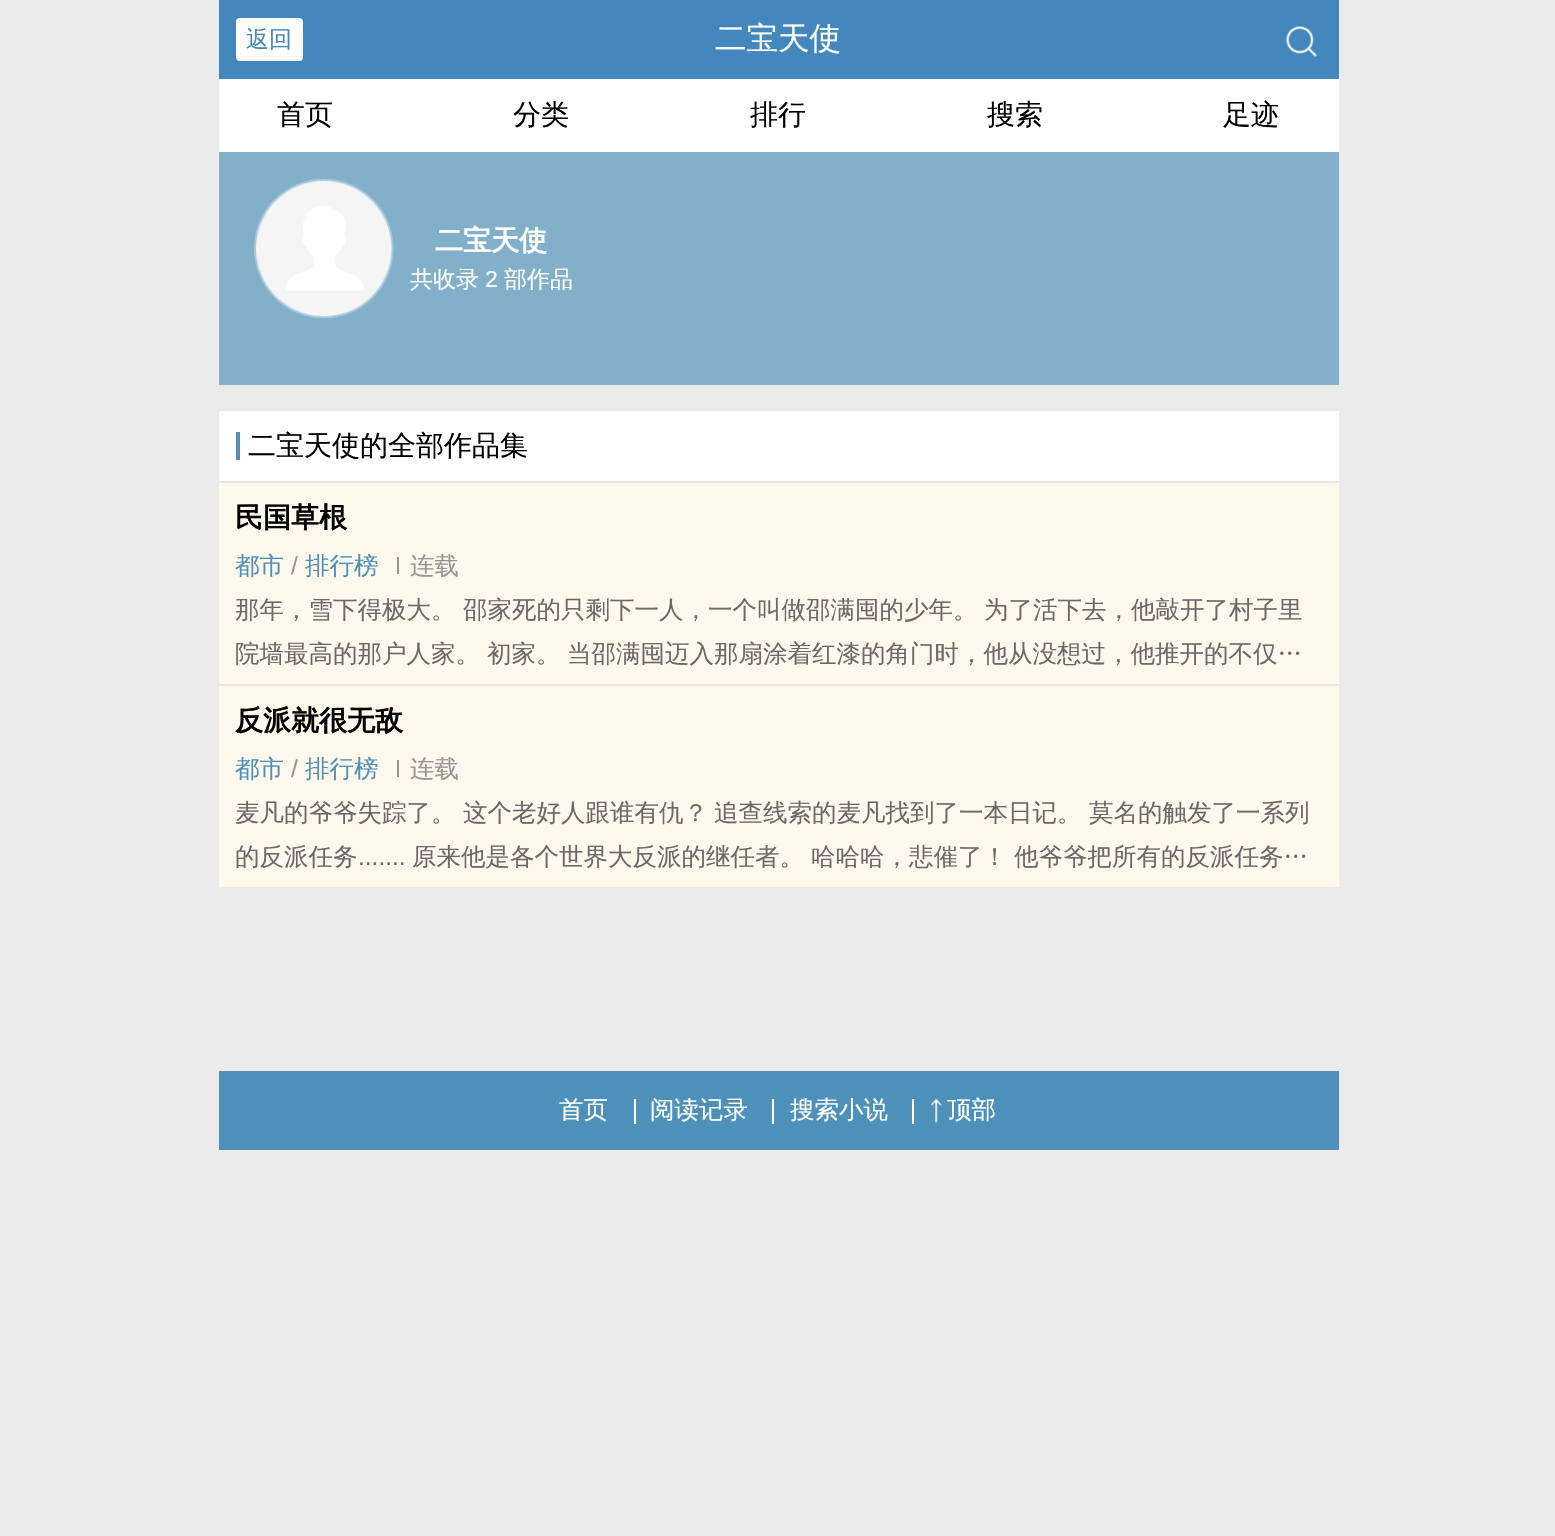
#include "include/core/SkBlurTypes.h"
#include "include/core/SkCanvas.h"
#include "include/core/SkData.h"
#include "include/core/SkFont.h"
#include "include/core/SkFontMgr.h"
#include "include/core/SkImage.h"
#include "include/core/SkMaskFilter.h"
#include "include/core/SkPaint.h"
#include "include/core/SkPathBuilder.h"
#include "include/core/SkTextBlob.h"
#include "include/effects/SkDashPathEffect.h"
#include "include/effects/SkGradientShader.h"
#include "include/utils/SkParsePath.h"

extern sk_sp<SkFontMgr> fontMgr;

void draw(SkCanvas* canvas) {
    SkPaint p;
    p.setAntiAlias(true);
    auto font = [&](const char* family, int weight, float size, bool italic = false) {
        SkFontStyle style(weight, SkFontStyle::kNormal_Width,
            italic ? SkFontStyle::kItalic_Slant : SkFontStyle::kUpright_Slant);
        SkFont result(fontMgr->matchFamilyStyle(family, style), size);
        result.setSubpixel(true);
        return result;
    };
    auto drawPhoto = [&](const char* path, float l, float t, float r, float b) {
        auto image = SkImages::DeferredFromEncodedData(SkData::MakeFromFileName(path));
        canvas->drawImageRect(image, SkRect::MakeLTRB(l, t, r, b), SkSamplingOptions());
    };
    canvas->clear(0xFFEBEBEB);
    p.setColor(0xFF4387BC);
    canvas->drawRect(SkRect::MakeLTRB(219, 0, 1339, 79), p);
    p.setColor(0xFFFFFFFF);
    canvas->drawRoundRect(SkRect::MakeLTRB(236, 18, 303, 61), 4, 4, p);
    auto font1 = font("WenQuanYi Zen Hei", 500, 23);
    p.setColor(0xFF4387BC);
    canvas->drawString("返回", 246, 47, font1, p);
    auto font2 = font("WenQuanYi Zen Hei", 500, 31.5f);
    p.setColor(0xFFFFFFFF);
    canvas->drawString("二宝天使", 715, 49, font2, p);
    drawPhoto("media/1.png", 1286, 26, 1317, 57);
    canvas->drawRect(SkRect::MakeLTRB(219, 79, 1339, 152), p);
    auto font3 = font("WenQuanYi Zen Hei", 500, 28);
    p.setColor(0xFF000000);
    {
        const struct { const char* s; float x, y; } items[] = {
            {"首页", 277, 124},
            {"分类", 513, 124},
            {"排行", 750, 124},
            {"搜索", 987, 124},
            {"足迹", 1223, 124},
        };
        for (auto [s, x, y] : items) {
            canvas->drawString(s, x, y, font3, p);
        }
    }
    p.setColor(0xFF82B0CA);
    canvas->drawRect(SkRect::MakeLTRB(219, 152, 1339, 385), p);
    drawPhoto("media/2.png", 254, 178, 394, 319);
    auto font4 = font("WenQuanYi Zen Hei", 700, 28);
    p.setColor(0xFFFFFFFF);
    canvas->drawString("二宝天使", 435, 250, font4, p);
    canvas->drawString("共收录", 410, 287, font1, p);
    auto font5 = font("Liberation Sans", 400, 23);
    canvas->drawString("2", 485, 287, font5, p);
    canvas->drawString("部作品", 504, 287, font1, p);
    canvas->drawRect(SkRect::MakeLTRB(219, 411, 1339, 481), p);
    p.setColor(0xFF4D91BB);
    canvas->drawRect(SkRect::MakeLTRB(236, 432, 240, 460), p);
    p.setColor(0xFF000000);
    canvas->drawString("二宝天使的全部作品集", 248, 455, font3, p);
    p.setColor(0xFFFFF8ED);
    canvas->drawRect(SkRect::MakeLTRB(219, 483, 1339, 684), p);
    p.setColor(0xFFE9E7E4);
    canvas->drawRect(SkRect::MakeLTRB(219, 481, 1339, 483), p);
    p.setColor(0xFF000000);
    canvas->drawString("民国草根", 235, 527, font4, p);
    auto font6 = font("WenQuanYi Zen Hei", 500, 24.5f);
    p.setColor(0xFF4D91BB);
    canvas->drawString("都市", 235, 574, font6, p);
    auto font7 = font("Liberation Sans", 400, 24.5f);
    p.setColor(0xFF959595);
    canvas->drawString("/", 291, 574, font7, p);
    p.setColor(0xFF4D91BB);
    canvas->drawString("排行榜", 305, 574, font6, p);
    p.setColor(0xFF959595);
    canvas->drawRect(SkRect::MakeLTRB(397, 557, 399, 574), p);
    canvas->drawString("连载", 410, 574, font6, p);
    p.setColor(0xFF696969);
    {
        const struct { const char* s; float x, y; } items[] = {
            {"那年，雪下得极大。", 235, 618},
            {"邵家死的只剩下一人，一个叫做邵满囤的少年。", 463, 618},
            {"为了活下去，他敲开了村子里", 984, 618},
            {"院墙最高的那户人家。", 235, 662},
            {"初家。", 487, 662},
            {"当邵满囤迈入那扇涂着红漆的角门时，他从没想过，他推开的不仅…", 567, 662},
        };
        for (auto [s, x, y] : items) {
            canvas->drawString(s, x, y, font6, p);
        }
    }
    p.setColor(0xFFFFF8ED);
    canvas->drawRect(SkRect::MakeLTRB(219, 686, 1339, 887), p);
    p.setColor(0xFFE9E7E4);
    canvas->drawRect(SkRect::MakeLTRB(219, 684, 1339, 686), p);
    p.setColor(0xFF000000);
    canvas->drawString("反派就很无敌", 235, 730, font4, p);
    p.setColor(0xFF4D91BB);
    canvas->drawString("都市", 235, 777, font6, p);
    p.setColor(0xFF959595);
    canvas->drawString("/", 291, 777, font7, p);
    p.setColor(0xFF4D91BB);
    canvas->drawString("排行榜", 305, 777, font6, p);
    p.setColor(0xFF959595);
    canvas->drawRect(SkRect::MakeLTRB(397, 760, 399, 777), p);
    canvas->drawString("连载", 410, 777, font6, p);
    p.setColor(0xFF696969);
    {
        const struct { const char* s; float x, y; } items[] = {
            {"麦凡的爷爷失踪了。", 235, 821},
            {"这个老好人跟谁有仇？", 463, 821},
            {"追查线索的麦凡找到了一本日记。", 714, 821},
            {"莫名的触发了一系列", 1089, 821},
            {"的反派任务", 235, 865},
        };
        for (auto [s, x, y] : items) {
            canvas->drawString(s, x, y, font6, p);
        }
    }
    canvas->drawString(".......", 358, 865, font7, p);
    {
        const struct { const char* s; float x, y; } items[] = {
            {"原来他是各个世界大反派的继任者。", 412, 865},
            {"哈哈哈，悲催了！", 811, 865},
            {"他爷爷把所有的反派任务…", 1014, 865},
        };
        for (auto [s, x, y] : items) {
            canvas->drawString(s, x, y, font6, p);
        }
    }
    p.setColor(0xFF4D91BB);
    canvas->drawRect(SkRect::MakeLTRB(219, 1071, 1339, 1150), p);
    p.setColor(0xFFFFFFFF);
    canvas->drawString("首页", 559, 1118, font6, p);
    canvas->drawRect(SkRect::MakeLTRB(634, 1099, 636, 1124), p);
    canvas->drawString("阅读记录", 650, 1118, font6, p);
    canvas->drawRect(SkRect::MakeLTRB(772, 1099, 774, 1124), p);
    canvas->drawString("搜索小说", 790, 1118, font6, p);
    canvas->drawRect(SkRect::MakeLTRB(912, 1099, 914, 1124), p);
    drawPhoto("media/3.png", 930, 1099, 942, 1123);
    canvas->drawString("顶部", 947, 1118, font6, p);
}
